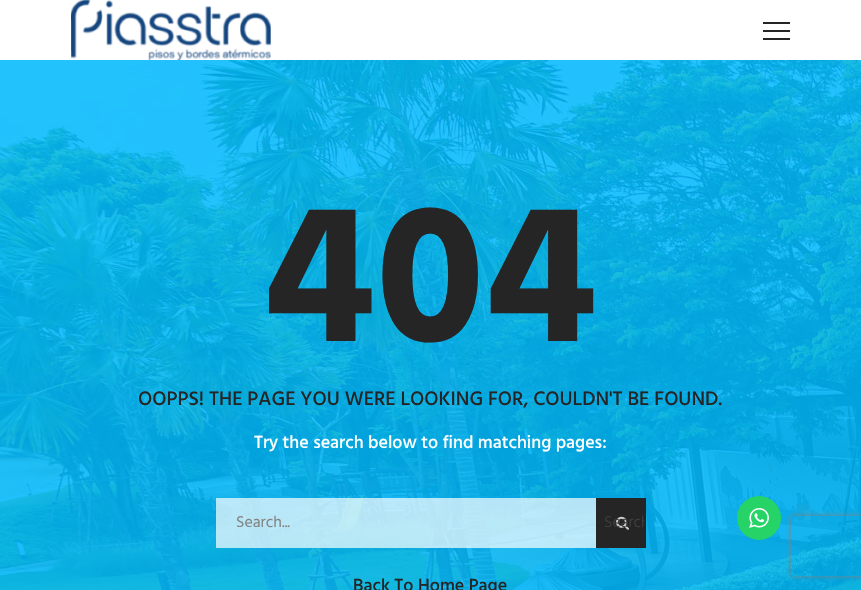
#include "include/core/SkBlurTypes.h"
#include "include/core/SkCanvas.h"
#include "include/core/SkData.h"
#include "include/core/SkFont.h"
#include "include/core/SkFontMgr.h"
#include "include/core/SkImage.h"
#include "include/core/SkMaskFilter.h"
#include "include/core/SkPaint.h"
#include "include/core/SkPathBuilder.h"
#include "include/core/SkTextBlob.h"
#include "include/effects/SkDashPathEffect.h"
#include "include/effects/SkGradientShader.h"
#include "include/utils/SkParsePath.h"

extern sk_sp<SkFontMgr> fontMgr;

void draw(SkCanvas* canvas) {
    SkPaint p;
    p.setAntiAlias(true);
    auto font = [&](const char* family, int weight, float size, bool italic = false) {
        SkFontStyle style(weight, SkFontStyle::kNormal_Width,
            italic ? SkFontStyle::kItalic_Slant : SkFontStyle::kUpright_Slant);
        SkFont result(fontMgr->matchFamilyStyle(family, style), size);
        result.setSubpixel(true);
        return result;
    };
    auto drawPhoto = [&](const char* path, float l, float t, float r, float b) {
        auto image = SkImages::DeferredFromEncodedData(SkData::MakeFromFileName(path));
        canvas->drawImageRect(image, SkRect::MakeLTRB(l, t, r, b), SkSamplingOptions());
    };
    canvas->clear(0xFFFFFFFF);
    drawPhoto("media/1.png", 71, 0, 271, 60);
    {
        const struct { float l, t, r, b; SkColor color; } items[] = {
            {763, 30, 790, 32, 0xFF252525},
            {763, 22, 790, 24, 0xFF252525},
            {763, 38, 790, 40, 0xFF252525},
        };
        for (auto [l, t, r, b, color] : items) {
            p.setColor(color);
            canvas->drawRect(SkRect::MakeLTRB(l, t, r, b), p);
        }
    }
    drawPhoto("media/2.png", 0, 60, 861, 590);
    auto font1 = font("Hind", 700, 200);
    canvas->drawString("404", 263, 341, font1, p);
    auto font2 = font("Hind", 500, 20);
    canvas->drawString("OOPPS! THE PAGE YOU WERE LOOKING FOR, COULDN'T BE FOUND.", 138, 405, font2, p);
    auto font3 = font("Hind", 500, 18);
    p.setColor(0xFFFFFFFF);
    canvas->drawString("Try the search below to find matching pages:", 254, 448, font3, p);
    p.setColor(0xB3FFFFFF);
    canvas->drawRect(SkRect::MakeLTRB(216, 498, 596, 548), p);
    auto font4 = font("Hind", 400, 16);
    p.setColor(0xFF848484);
    canvas->drawString("Search...", 236, 527, font4, p);
    p.setColor(0xFF252525);
    canvas->drawRect(SkRect::MakeLTRB(596, 498, 646, 548), p);
    drawPhoto("media/3.png", 616, 516, 629, 530);
    canvas->save();
    canvas->clipRect(SkRect::MakeLTRB(598, 500, 644, 546));
    auto font5 = font("Hind", 300, 16);
    p.setColor(0xFF3F3F3F);
    canvas->drawString("Search", 604, 527, font5, p);
    canvas->restore();
    p.setColor(0xFF252525);
    canvas->drawString("Back To Home Page", 353, 591, font3, p);
    p.setColor(0xFF25D366);
    canvas->drawCircle(759, 518, 22, p);
    drawPhoto("media/4.png", 749, 508, 769, 528);
    canvas->save();
    canvas->clipPath(SkPathBuilder(SkPathFillType::kEvenOdd).moveTo(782, 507).lineTo(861, 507).lineTo(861, 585).lineTo(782, 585).close().moveTo(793, 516).lineTo(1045, 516).cubicTo(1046, 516, 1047, 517, 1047, 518).lineTo(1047, 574).cubicTo(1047, 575, 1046, 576, 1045, 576).lineTo(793, 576).cubicTo(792, 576, 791, 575, 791, 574).lineTo(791, 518).cubicTo(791, 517, 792, 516, 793, 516).close().detach(), true);
    p.setColor(0xFF808080);
    p.setMaskFilter(SkMaskFilter::MakeBlur(kNormal_SkBlurStyle, 2.5f));
    canvas->drawRoundRect(SkRect::MakeLTRB(791, 516, 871, 576), 2, 2, p);
    p.setMaskFilter(nullptr);
    canvas->restore();
}
